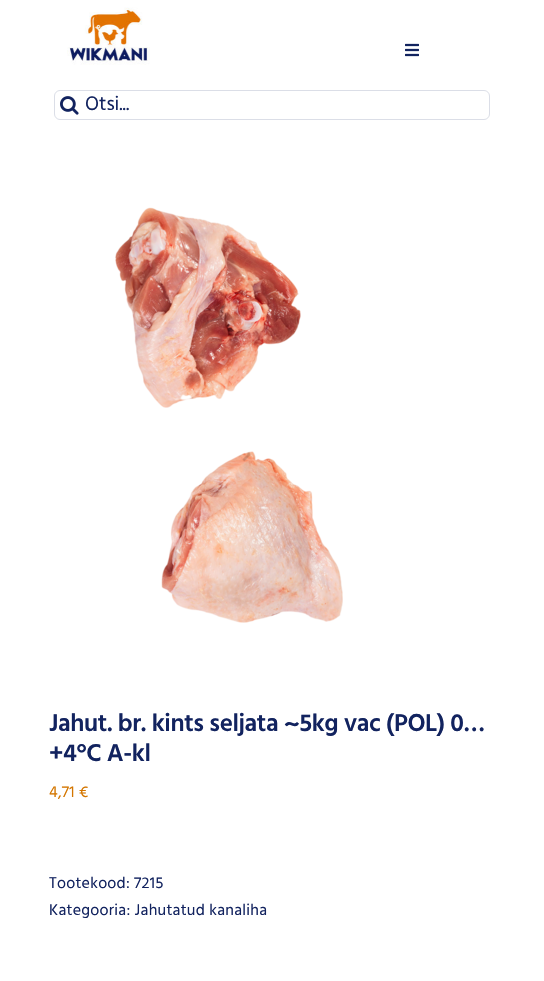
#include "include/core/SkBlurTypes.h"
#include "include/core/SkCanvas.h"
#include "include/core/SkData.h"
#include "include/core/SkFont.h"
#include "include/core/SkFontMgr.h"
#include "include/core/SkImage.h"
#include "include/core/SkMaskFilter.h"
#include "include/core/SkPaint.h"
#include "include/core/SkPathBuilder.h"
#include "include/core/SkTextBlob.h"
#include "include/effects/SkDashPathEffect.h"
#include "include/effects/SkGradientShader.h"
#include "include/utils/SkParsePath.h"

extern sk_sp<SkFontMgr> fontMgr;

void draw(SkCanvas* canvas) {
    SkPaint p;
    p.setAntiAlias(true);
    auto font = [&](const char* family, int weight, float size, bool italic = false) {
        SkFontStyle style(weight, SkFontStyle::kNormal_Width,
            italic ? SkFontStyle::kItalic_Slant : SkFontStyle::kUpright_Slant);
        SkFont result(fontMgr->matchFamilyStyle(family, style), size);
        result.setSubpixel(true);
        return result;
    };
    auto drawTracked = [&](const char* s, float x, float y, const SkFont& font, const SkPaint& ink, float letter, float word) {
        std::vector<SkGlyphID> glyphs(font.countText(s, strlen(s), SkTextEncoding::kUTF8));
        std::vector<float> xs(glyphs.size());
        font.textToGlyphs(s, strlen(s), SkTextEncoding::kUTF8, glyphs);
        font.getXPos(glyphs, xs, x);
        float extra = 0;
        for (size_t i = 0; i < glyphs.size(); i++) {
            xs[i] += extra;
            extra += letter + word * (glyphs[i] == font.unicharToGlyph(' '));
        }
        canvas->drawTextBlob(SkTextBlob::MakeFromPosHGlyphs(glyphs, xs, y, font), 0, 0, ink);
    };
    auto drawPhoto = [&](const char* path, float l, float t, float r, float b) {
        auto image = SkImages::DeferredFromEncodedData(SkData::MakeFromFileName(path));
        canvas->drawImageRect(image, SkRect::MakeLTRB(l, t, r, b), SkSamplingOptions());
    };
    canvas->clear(0xFFFFFFFF);
    drawPhoto("media/1.png", 67, 7, 150, 65);
    drawPhoto("media/2.png", 405, 43, 419, 57);
    p.setStyle(SkPaint::kStroke_Style);
    p.setStrokeWidth(1);
    p.setColor(0xFFDBDEE7);
    canvas->drawRoundRect(SkRect::MakeLTRB(54.5f, 90.5f, 489.5f, 119.5f), 5.5f, 5.5f, p);
    drawPhoto("media/3.png", 60, 96, 79, 115);
    auto font1 = font("Hind", 400, 20);
    p.setStyle(SkPaint::kFill_Style);
    p.setColor(0xFF12235F);
    canvas->drawString("Otsi...", 85, 110, font1, p);
    drawPhoto("media/4.png", 115, 207, 343, 623);
    auto font2 = font("Hind", 600, 25);
    drawTracked("Jahut. br. kints seljata ~5kg vac (POL) 0…", 49, 731, font2, p, -0.4f, 0);
    drawTracked("+4°C A-kl", 49, 761, font2, p, -0.4f, 0);
    auto font3 = font("Hind", 400, 16);
    p.setColor(0xFFD47600);
    drawTracked("4,71 €", 49, 797, font3, p, 0.25f, 0);
    p.setColor(0xFF12235F);
    drawTracked("Tootekood: 7215", 49, 888, font3, p, 0.25f, 0);
    drawTracked("Kategooria: Jahutatud kanaliha", 49, 915, font3, p, 0.25f, 0);
}
